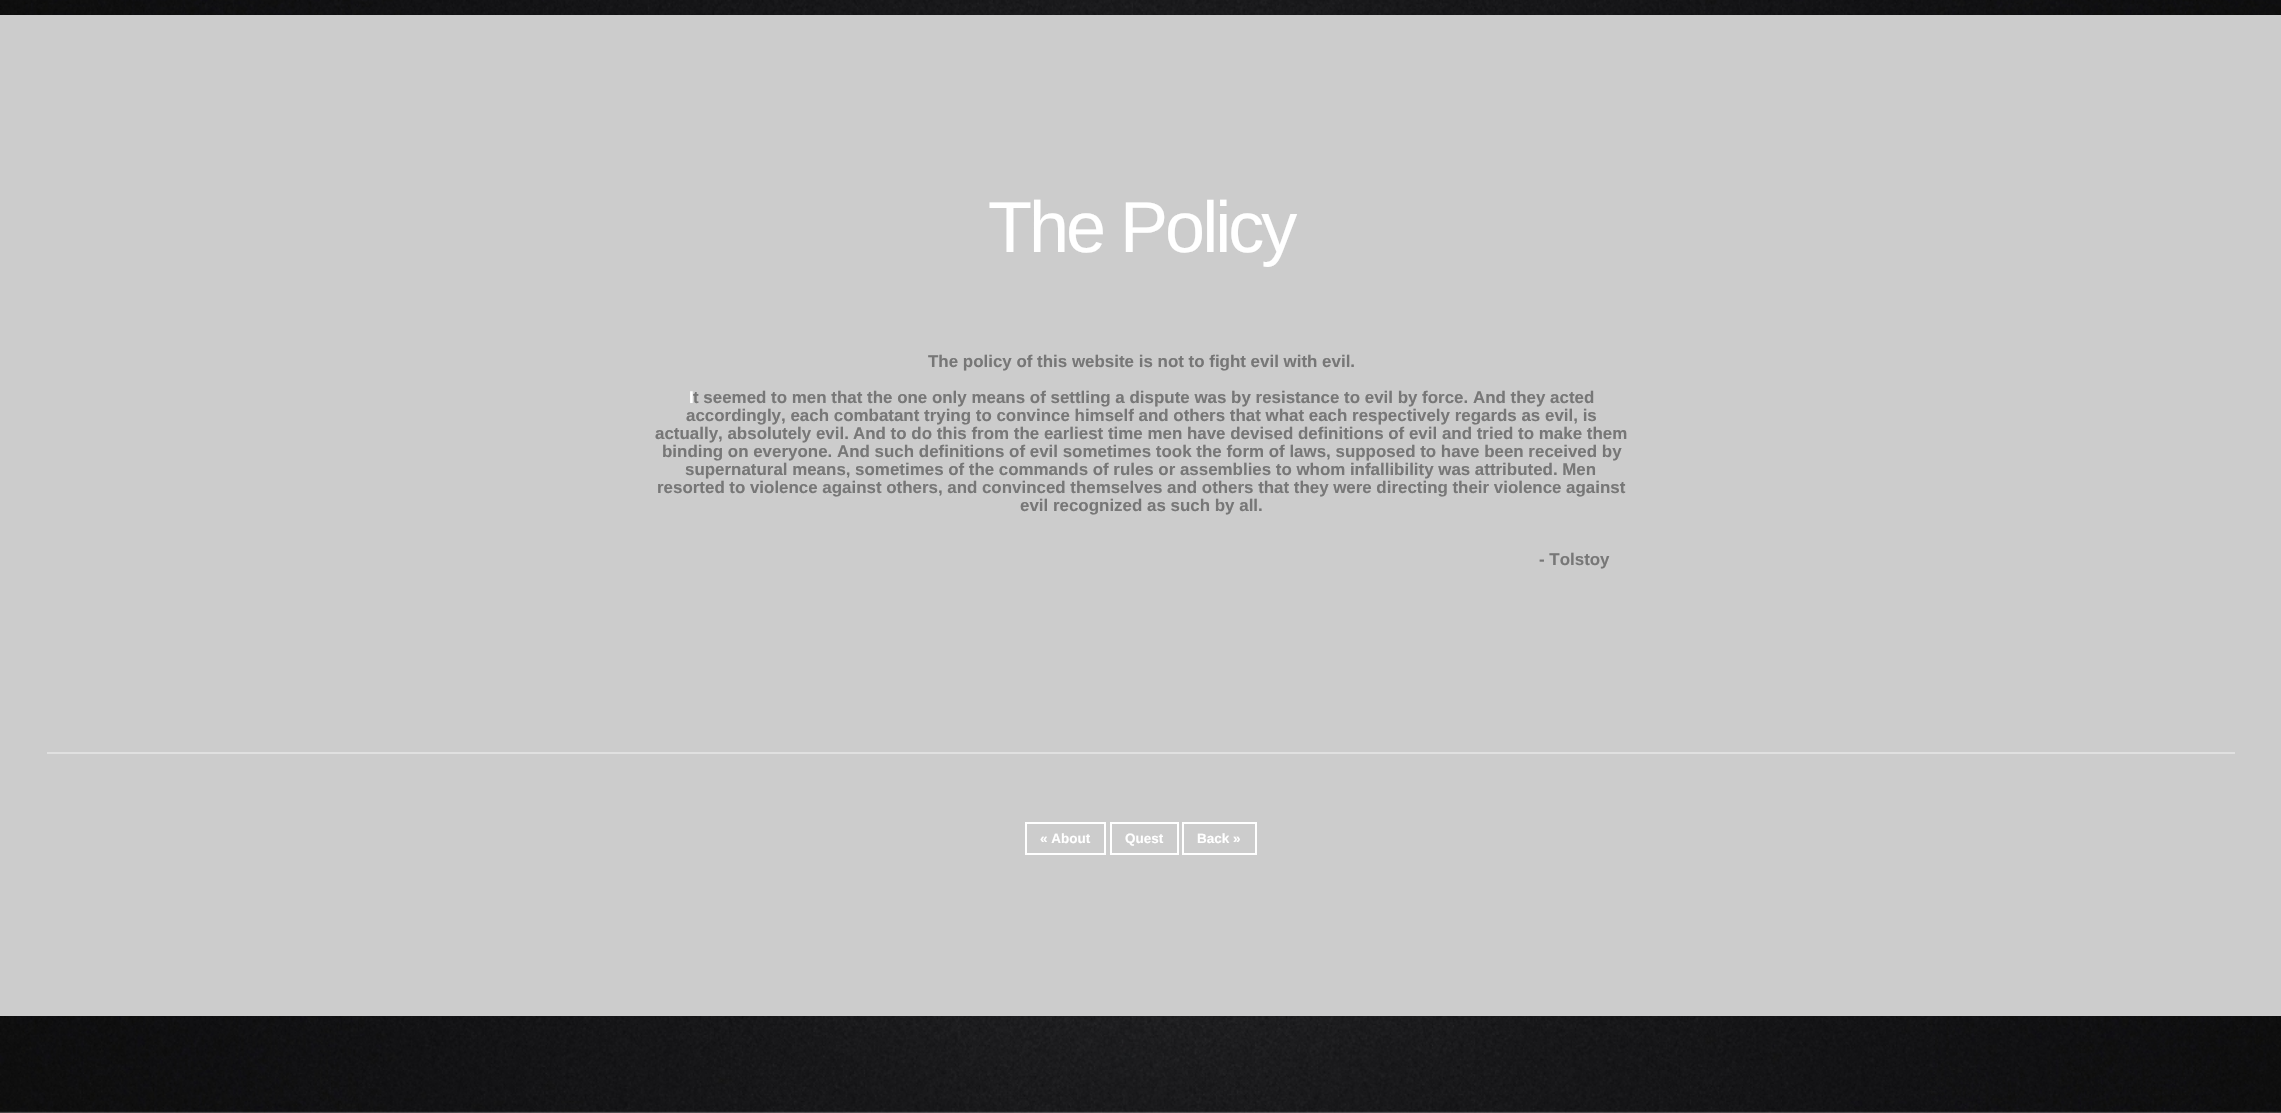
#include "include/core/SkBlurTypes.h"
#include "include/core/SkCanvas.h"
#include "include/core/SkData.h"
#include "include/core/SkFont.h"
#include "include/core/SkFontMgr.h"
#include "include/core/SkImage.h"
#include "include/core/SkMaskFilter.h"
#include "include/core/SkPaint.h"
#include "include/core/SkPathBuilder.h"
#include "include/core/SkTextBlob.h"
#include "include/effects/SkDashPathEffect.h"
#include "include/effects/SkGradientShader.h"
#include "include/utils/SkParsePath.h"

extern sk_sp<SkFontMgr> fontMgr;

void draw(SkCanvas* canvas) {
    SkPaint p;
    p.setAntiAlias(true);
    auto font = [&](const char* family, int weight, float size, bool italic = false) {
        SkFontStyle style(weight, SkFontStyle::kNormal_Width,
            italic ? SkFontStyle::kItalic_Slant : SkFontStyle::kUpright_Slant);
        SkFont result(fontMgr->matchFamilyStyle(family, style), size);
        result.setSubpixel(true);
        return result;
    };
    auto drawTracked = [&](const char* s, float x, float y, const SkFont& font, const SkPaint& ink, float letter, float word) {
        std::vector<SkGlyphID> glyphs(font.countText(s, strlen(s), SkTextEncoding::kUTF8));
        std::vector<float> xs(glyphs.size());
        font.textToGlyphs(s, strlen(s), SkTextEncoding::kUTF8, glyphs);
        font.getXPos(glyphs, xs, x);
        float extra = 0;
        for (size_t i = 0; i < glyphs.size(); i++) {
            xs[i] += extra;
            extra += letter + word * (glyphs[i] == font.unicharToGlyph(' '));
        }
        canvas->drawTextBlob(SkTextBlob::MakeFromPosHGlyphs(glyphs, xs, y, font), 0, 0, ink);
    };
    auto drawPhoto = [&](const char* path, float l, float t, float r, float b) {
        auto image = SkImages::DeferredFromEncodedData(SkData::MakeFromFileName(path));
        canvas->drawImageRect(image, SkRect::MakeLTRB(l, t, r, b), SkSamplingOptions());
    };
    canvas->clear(0xFFFFFFFF);
    drawPhoto("media/1.png", 0, 0, 2281, 1113);
    p.setColor(0xFFCCCCCC);
    canvas->drawRect(SkRect::MakeLTRB(0, 15, 2281, 1016), p);
    p.setColor(0xFFE0E0E0);
    canvas->drawRect(SkRect::MakeLTRB(47, 752, 2235, 754), p);
    auto font1 = font("Liberation Sans", 400, 72);
    p.setColor(0xFFFFFFFF);
    drawTracked("The Policy", 988, 252, font1, p, -3, 0);
    auto font2 = font("Liberation Sans", 700, 16.93f);
    p.setColor(0xFF777777);
    canvas->drawString("The policy of this website is not to fight evil with evil.", 928, 367, font2, p);
    p.setColor(0xFFFFFFFF);
    canvas->drawString("I", 689, 403, font2, p);
    p.setColor(0xFF777777);
    {
        const struct { const char* s; float x, y; } items[] = {
            {"t seemed to men that the one only means of settling a dispute was by resistance to evil by force. And they acted", 693, 403},
            {"accordingly, each combatant trying to convince himself and others that what each respectively regards as evil, is", 686, 421},
            {"actually, absolutely evil.", 655, 439},
            {"And to do this from the earliest time men have devised definitions of evil and tried to make them", 853, 439},
            {"binding on everyone. And such definitions of evil sometimes took the form of laws, supposed to have been received by", 662, 457},
        };
        for (auto [s, x, y] : items) {
            canvas->drawString(s, x, y, font2, p);
        }
    }
    drawTracked("supernatural means, sometimes of the commands of rules or assemblies to whom infallibility was attributed. Men", 685, 475, font2, p, 0, -0.1f);
    drawTracked("resorted to violence against others, and convinced themselves and others that they were directing their violence against", 657, 493, font2, p, 0, -0.1f);
    canvas->drawString("evil recognized as such by all.", 1020, 511, font2, p);
    canvas->drawString("- Tolstoy", 1539, 565, font2, p);
    p.setStyle(SkPaint::kStroke_Style);
    p.setStrokeWidth(2);
    p.setColor(0xFFFFFFFF);
    canvas->drawRect(SkRect::MakeLTRB(1026, 823, 1105, 854), p);
    auto font3 = font("Liberation Sans", 700, 13.5f);
    p.setStyle(SkPaint::kFill_Style);
    canvas->drawString("« About", 1040, 843, font3, p);
    p.setStyle(SkPaint::kStroke_Style);
    canvas->drawRect(SkRect::MakeLTRB(1111, 823, 1178, 854), p);
    p.setStyle(SkPaint::kFill_Style);
    canvas->drawString("Quest", 1125, 843, font3, p);
    p.setStyle(SkPaint::kStroke_Style);
    canvas->drawRect(SkRect::MakeLTRB(1183, 823, 1256, 854), p);
    p.setStyle(SkPaint::kFill_Style);
    canvas->drawString("Back »", 1197, 843, font3, p);
}
